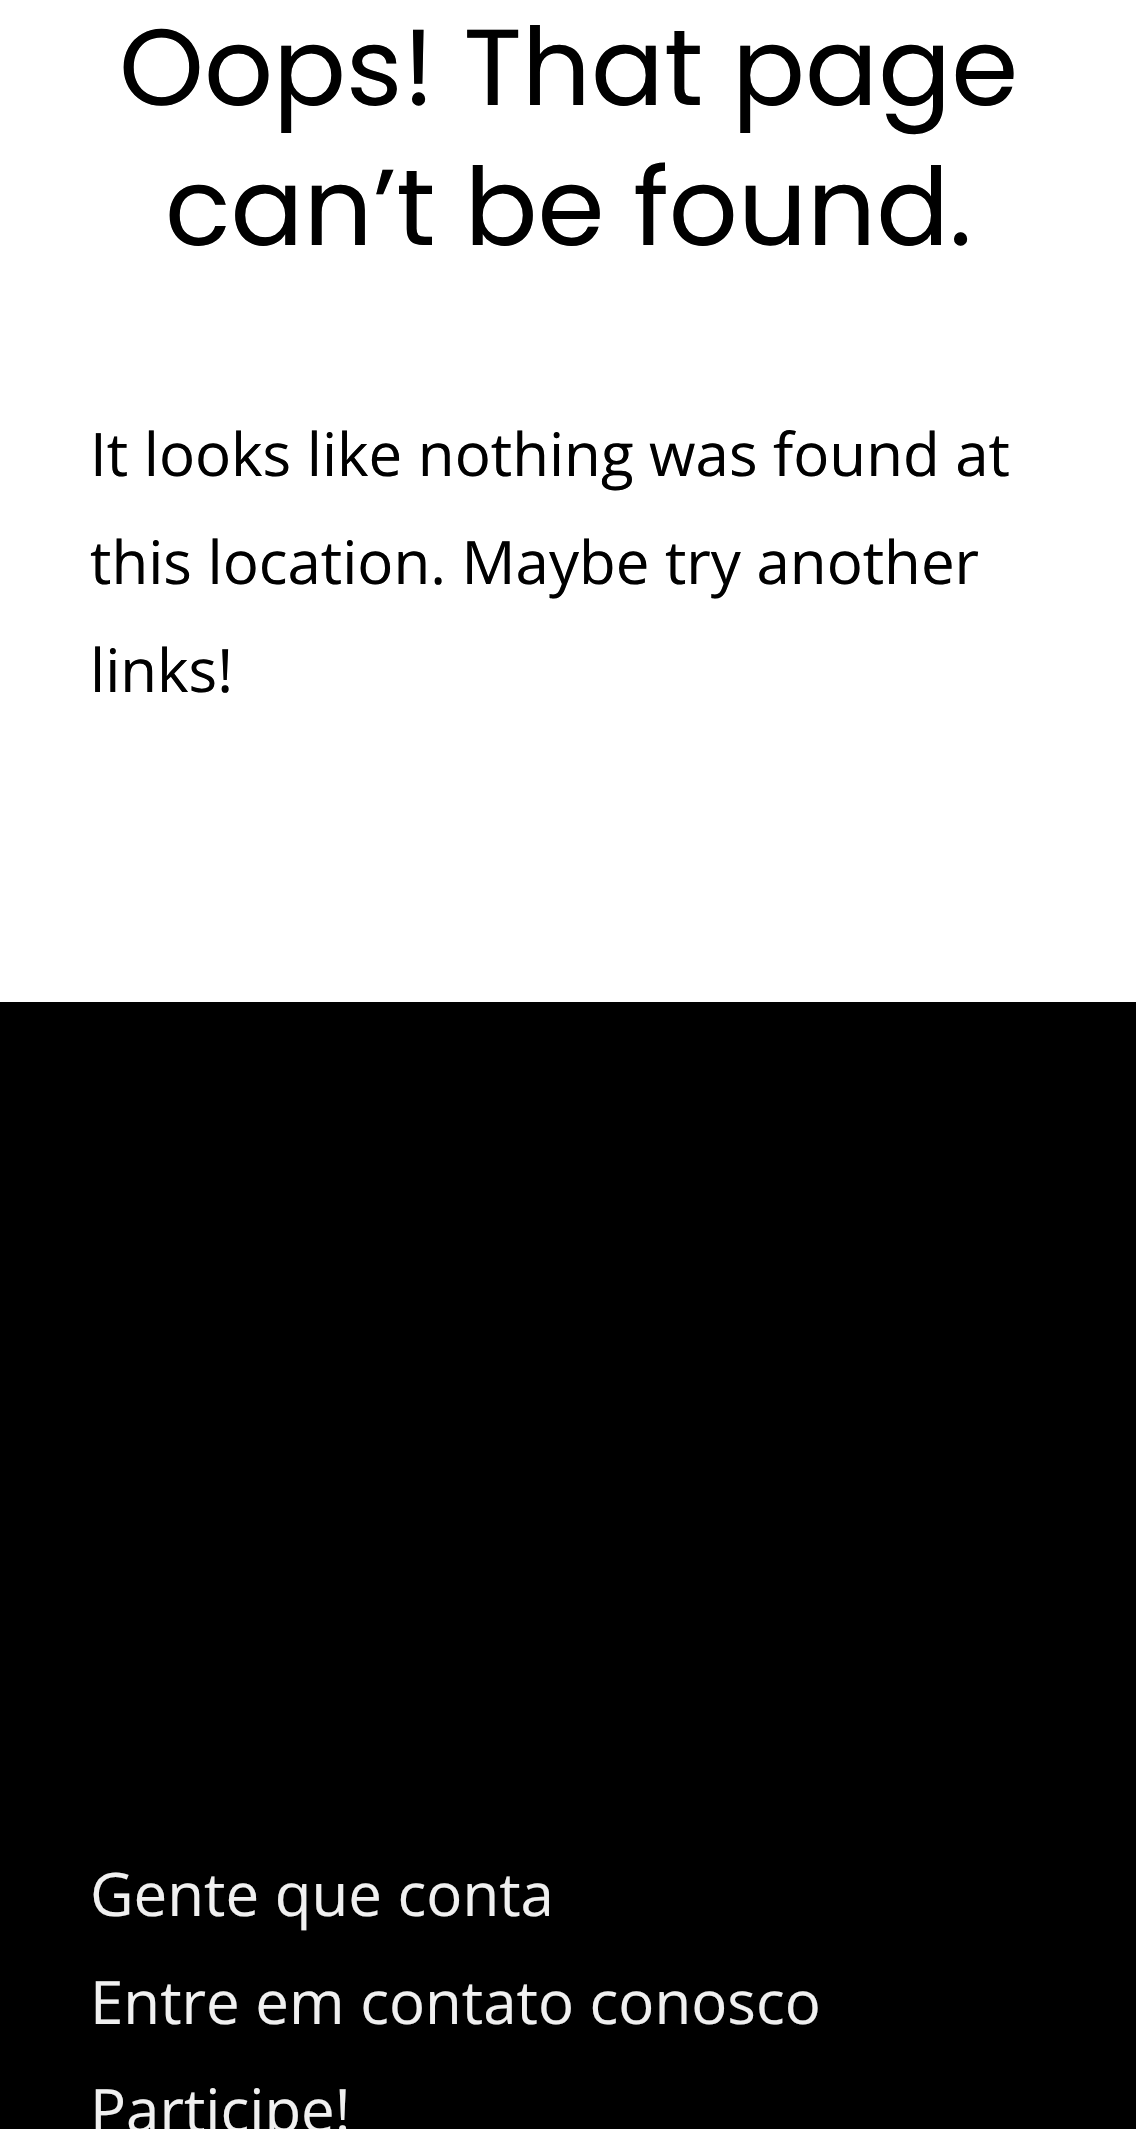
#include "include/core/SkBlurTypes.h"
#include "include/core/SkCanvas.h"
#include "include/core/SkData.h"
#include "include/core/SkFont.h"
#include "include/core/SkFontMgr.h"
#include "include/core/SkImage.h"
#include "include/core/SkMaskFilter.h"
#include "include/core/SkPaint.h"
#include "include/core/SkPathBuilder.h"
#include "include/core/SkTextBlob.h"
#include "include/effects/SkDashPathEffect.h"
#include "include/effects/SkGradientShader.h"
#include "include/utils/SkParsePath.h"

extern sk_sp<SkFontMgr> fontMgr;

void draw(SkCanvas* canvas) {
    SkPaint p;
    p.setAntiAlias(true);
    auto font = [&](const char* family, int weight, float size, bool italic = false) {
        SkFontStyle style(weight, SkFontStyle::kNormal_Width,
            italic ? SkFontStyle::kItalic_Slant : SkFontStyle::kUpright_Slant);
        SkFont result(fontMgr->matchFamilyStyle(family, style), size);
        result.setSubpixel(true);
        return result;
    };
    canvas->clear(0xFFFFFFFF);
    auto font1 = font("Poppins", 400, 108);
    p.setColor(0xFF000000);
    canvas->drawString("Oops! That page", 119, 105, font1, p);
    canvas->drawString("can’t be found.", 165, 245, font1, p);
    auto font2 = font("Open Sans", 400, 60);
    {
        const struct { const char* s; float x, y; } items[] = {
            {"It looks like nothing was found at", 90, 476},
            {"this location. Maybe try another", 90, 584},
            {"links!", 90, 692},
        };
        for (auto [s, x, y] : items) {
            canvas->drawString(s, x, y, font2, p);
        }
    }
    canvas->drawRect(SkRect::MakeLTRB(0, 1002, 1136, 2129), p);
    p.setColor(0xFFF0F0F0);
    {
        const struct { const char* s; float x, y; } items[] = {
            {"Gente que conta", 90, 1916},
            {"Entre em contato conosco", 90, 2024},
            {"Participe!", 90, 2132},
        };
        for (auto [s, x, y] : items) {
            canvas->drawString(s, x, y, font2, p);
        }
    }
}
